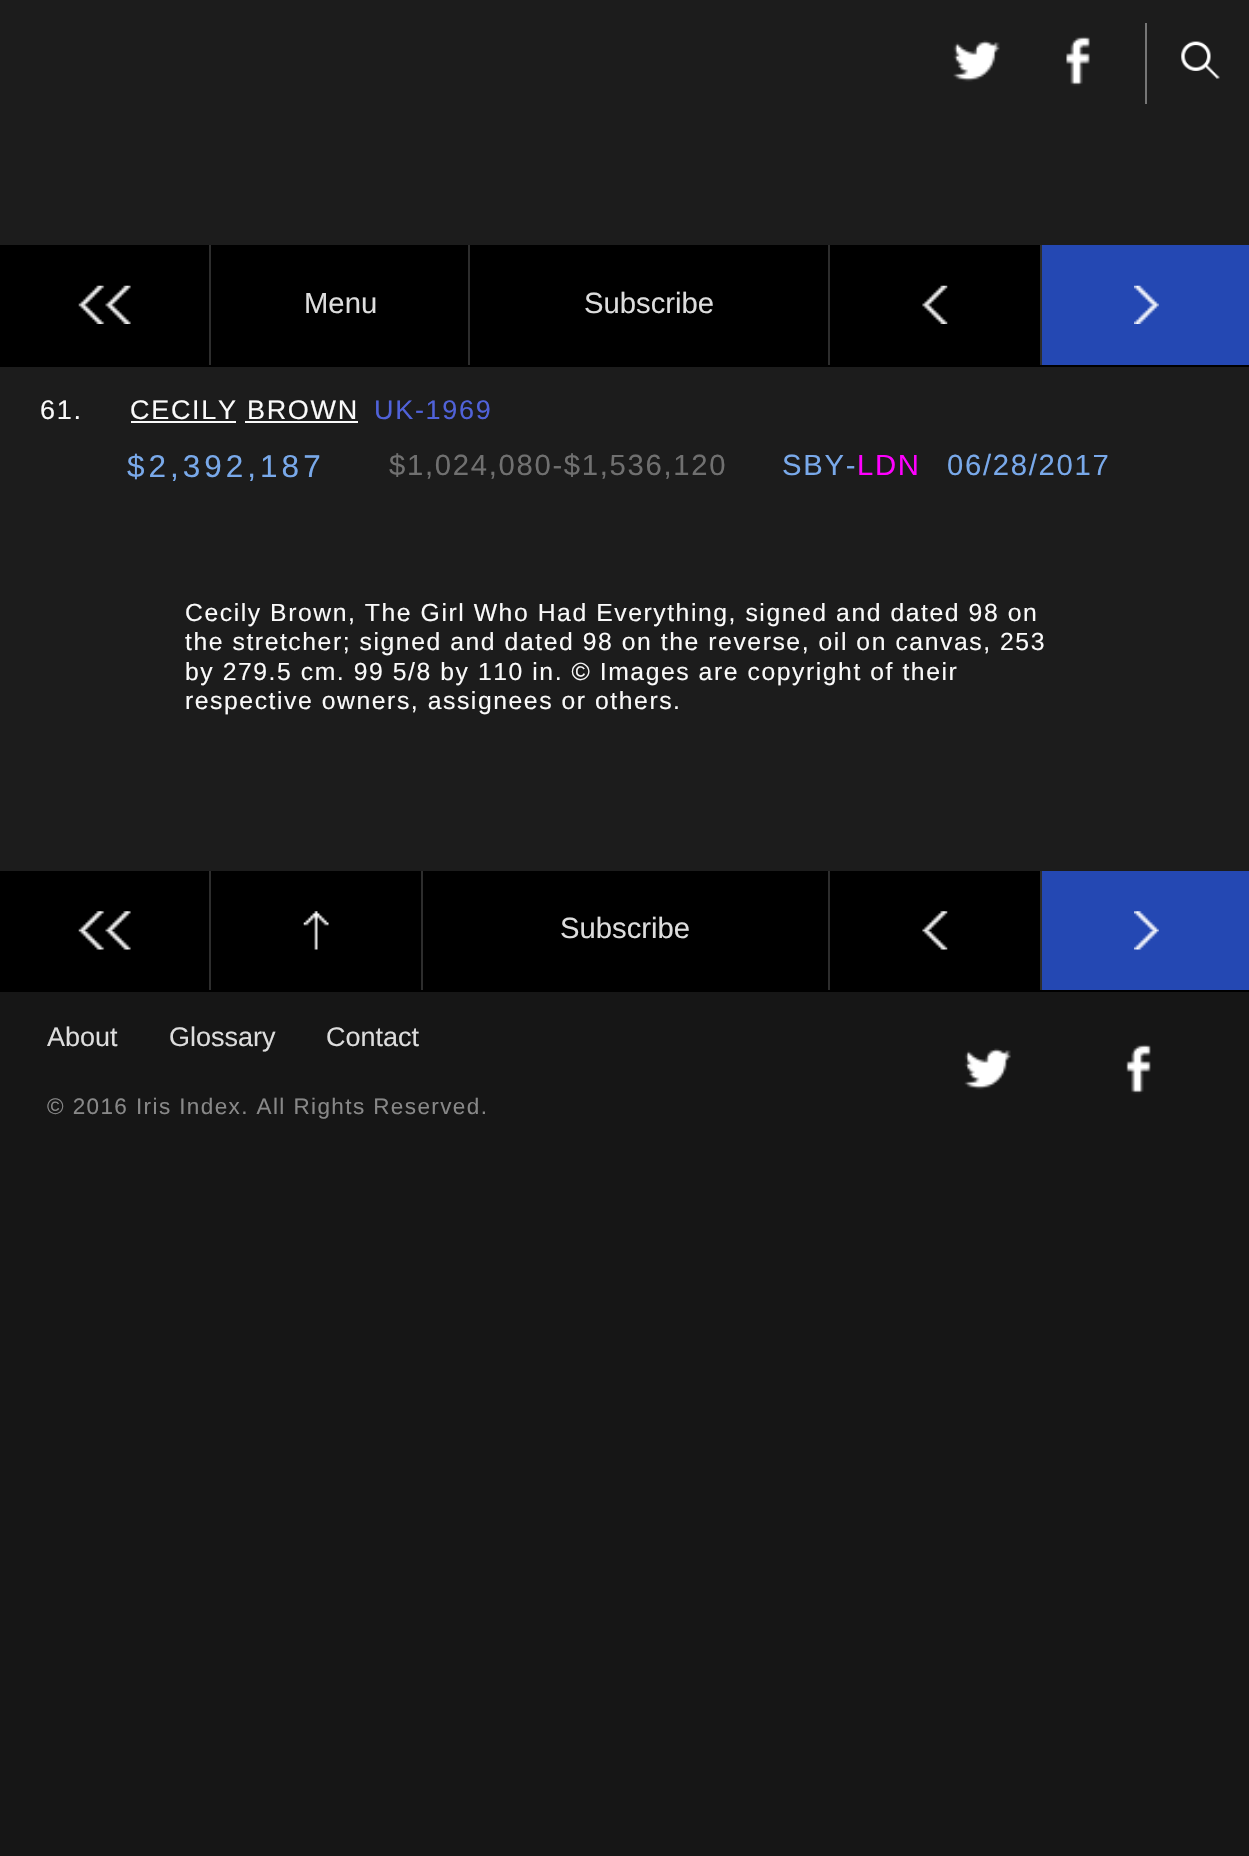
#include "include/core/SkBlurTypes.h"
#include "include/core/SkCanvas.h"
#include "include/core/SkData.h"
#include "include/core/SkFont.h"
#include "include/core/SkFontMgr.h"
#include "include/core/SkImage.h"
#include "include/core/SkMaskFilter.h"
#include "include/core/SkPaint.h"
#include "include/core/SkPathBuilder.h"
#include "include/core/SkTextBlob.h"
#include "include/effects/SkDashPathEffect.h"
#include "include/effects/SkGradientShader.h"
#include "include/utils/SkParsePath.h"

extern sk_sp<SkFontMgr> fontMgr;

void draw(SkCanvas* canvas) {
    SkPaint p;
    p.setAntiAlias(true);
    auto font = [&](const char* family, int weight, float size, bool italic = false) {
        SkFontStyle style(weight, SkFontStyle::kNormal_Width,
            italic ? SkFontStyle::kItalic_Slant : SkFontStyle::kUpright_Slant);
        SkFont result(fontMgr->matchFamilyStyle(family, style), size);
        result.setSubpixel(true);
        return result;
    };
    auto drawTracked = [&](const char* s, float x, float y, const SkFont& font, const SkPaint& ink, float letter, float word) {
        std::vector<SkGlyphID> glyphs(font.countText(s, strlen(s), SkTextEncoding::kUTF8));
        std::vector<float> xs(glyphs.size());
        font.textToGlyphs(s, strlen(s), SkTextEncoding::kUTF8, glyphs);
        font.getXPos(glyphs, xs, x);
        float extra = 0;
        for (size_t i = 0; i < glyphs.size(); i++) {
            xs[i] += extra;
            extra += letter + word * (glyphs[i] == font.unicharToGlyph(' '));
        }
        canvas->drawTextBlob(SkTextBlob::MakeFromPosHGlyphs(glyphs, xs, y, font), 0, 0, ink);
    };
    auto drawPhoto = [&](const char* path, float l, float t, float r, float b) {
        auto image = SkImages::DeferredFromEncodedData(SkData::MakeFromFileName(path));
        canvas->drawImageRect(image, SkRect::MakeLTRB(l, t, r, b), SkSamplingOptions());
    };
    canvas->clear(0xFF161616);
    p.setColor(0xFF1C1C1C);
    canvas->drawRect(SkRect::MakeLTRB(0, 0, 1249, 871), p);
    drawPhoto("media/1.png", 953, 40, 1000, 82);
    drawPhoto("media/2.png", 1066, 36, 1090, 86);
    p.setColor(0xFF767676);
    canvas->drawRect(SkRect::MakeLTRB(1145, 23, 1147, 104), p);
    drawPhoto("media/3.png", 1181, 41, 1220, 79);
    p.setColor(0xFF000000);
    canvas->drawRect(SkRect::MakeLTRB(0, 245, 1040, 365), p);
    p.setColor(0xFF2D2D2D);
    canvas->drawRect(SkRect::MakeLTRB(209, 245, 211, 365), p);
    drawPhoto("media/4.png", 78, 285, 131, 324);
    canvas->drawRect(SkRect::MakeLTRB(468, 245, 470, 365), p);
    auto font1 = font("Liberation Sans", 400, 29.25f);
    p.setColor(0xFFDDDDDD);
    canvas->drawString("Menu", 304, 313, font1, p);
    p.setColor(0xFF2D2D2D);
    canvas->drawRect(SkRect::MakeLTRB(828, 245, 830, 365), p);
    p.setColor(0xFFDDDDDD);
    canvas->drawString("Subscribe", 584, 313, font1, p);
    p.setColor(0xFF2D2D2D);
    canvas->drawRect(SkRect::MakeLTRB(1040, 245, 1042, 365), p);
    drawPhoto("media/5.png", 922, 285, 948, 324);
    p.setColor(0xFF2448B3);
    canvas->drawRect(SkRect::MakeLTRB(1042, 245, 1249, 365), p);
    drawPhoto("media/6.png", 1134, 285, 1159, 324);
    p.setColor(0xFF000000);
    canvas->drawRect(SkRect::MakeLTRB(0, 365, 1249, 367), p);
    auto font2 = font("Liberation Sans", 400, 27);
    p.setColor(0xFFFAFAFA);
    drawTracked("61.", 40, 419, font2, p, 1.7f, 0);
    drawTracked("CECILY BROWN", 130, 419, font2, p, 1.7f, 0);
    canvas->drawRect(SkRect::MakeLTRB(131, 421, 236, 423), p);
    p.setColor(0xFF5062D9);
    drawTracked("UK-1969", 374, 419, font2, p, 1.7f, 0);
    p.setColor(0xFFFAFAFA);
    canvas->drawRect(SkRect::MakeLTRB(245, 421, 358, 423), p);
    auto font3 = font("Liberation Sans", 400, 31.5f);
    p.setColor(0xFF79A9EA);
    drawTracked("$2,392,187", 127, 477, font3, p, 4, 0);
    p.setColor(0xFF707070);
    drawTracked("$1,024,080-$1,536,120", 389, 475, font1, p, 1.7f, 0);
    p.setColor(0xFF79A9EA);
    drawTracked("SBY-", 782, 475, font1, p, 1.7f, 0);
    p.setColor(0xFFFF00FF);
    drawTracked("LDN", 857, 475, font1, p, 1.7f, 0);
    p.setColor(0xFF79A9EA);
    drawTracked("06/28/2017", 947, 475, font1, p, 1.7f, 0);
    auto font4 = font("Liberation Sans", 400, 24.75f);
    p.setColor(0xFFFAFAFA);
    {
        const struct { const char* s; float x, y; } items[] = {
            {"Cecily Brown, The Girl Who Had Everything, signed and dated 98 on", 185, 621},
            {"the stretcher; signed and dated 98 on the reverse, oil on canvas, 253", 185, 650},
            {"by 279.5 cm. 99 5/8 by 110 in. © Images are copyright of their", 185, 680},
            {"respective owners, assignees or others.", 185, 709},
        };
        for (auto [s, x, y] : items) {
            drawTracked(s, x, y, font4, p, 1.55f, 0);
        }
    }
    p.setColor(0xFF000000);
    canvas->drawRect(SkRect::MakeLTRB(0, 871, 1040, 990), p);
    p.setColor(0xFF2D2D2D);
    canvas->drawRect(SkRect::MakeLTRB(209, 871, 211, 990), p);
    drawPhoto("media/7.png", 78, 911, 131, 950);
    canvas->drawRect(SkRect::MakeLTRB(421, 871, 423, 990), p);
    drawPhoto("media/8.png", 303, 911, 329, 950);
    canvas->drawRect(SkRect::MakeLTRB(828, 871, 830, 990), p);
    p.setColor(0xFFDDDDDD);
    canvas->drawString("Subscribe", 560, 938, font1, p);
    p.setColor(0xFF2D2D2D);
    canvas->drawRect(SkRect::MakeLTRB(1040, 871, 1042, 990), p);
    drawPhoto("media/9.png", 922, 911, 948, 950);
    p.setColor(0xFF2448B3);
    canvas->drawRect(SkRect::MakeLTRB(1042, 871, 1249, 990), p);
    drawPhoto("media/10.png", 1134, 911, 1159, 950);
    p.setColor(0xFF000000);
    canvas->drawRect(SkRect::MakeLTRB(0, 990, 1249, 992), p);
    p.setColor(0xFFDDDDDD);
    {
        const struct { const char* s; float x, y; } items[] = {
            {"About", 47, 1046},
            {"Glossary", 169, 1046},
            {"Contact", 326, 1046},
        };
        for (auto [s, x, y] : items) {
            canvas->drawString(s, x, y, font2, p);
        }
    }
    auto font5 = font("Liberation Sans", 400, 22.5f);
    p.setColor(0xFF888888);
    drawTracked("© 2016 Iris Index. All Rights Reserved.", 47, 1114, font5, p, 1.4f, 0);
    drawPhoto("media/11.png", 964, 1048, 1011, 1090);
    drawPhoto("media/12.png", 1126, 1044, 1151, 1094);
}
